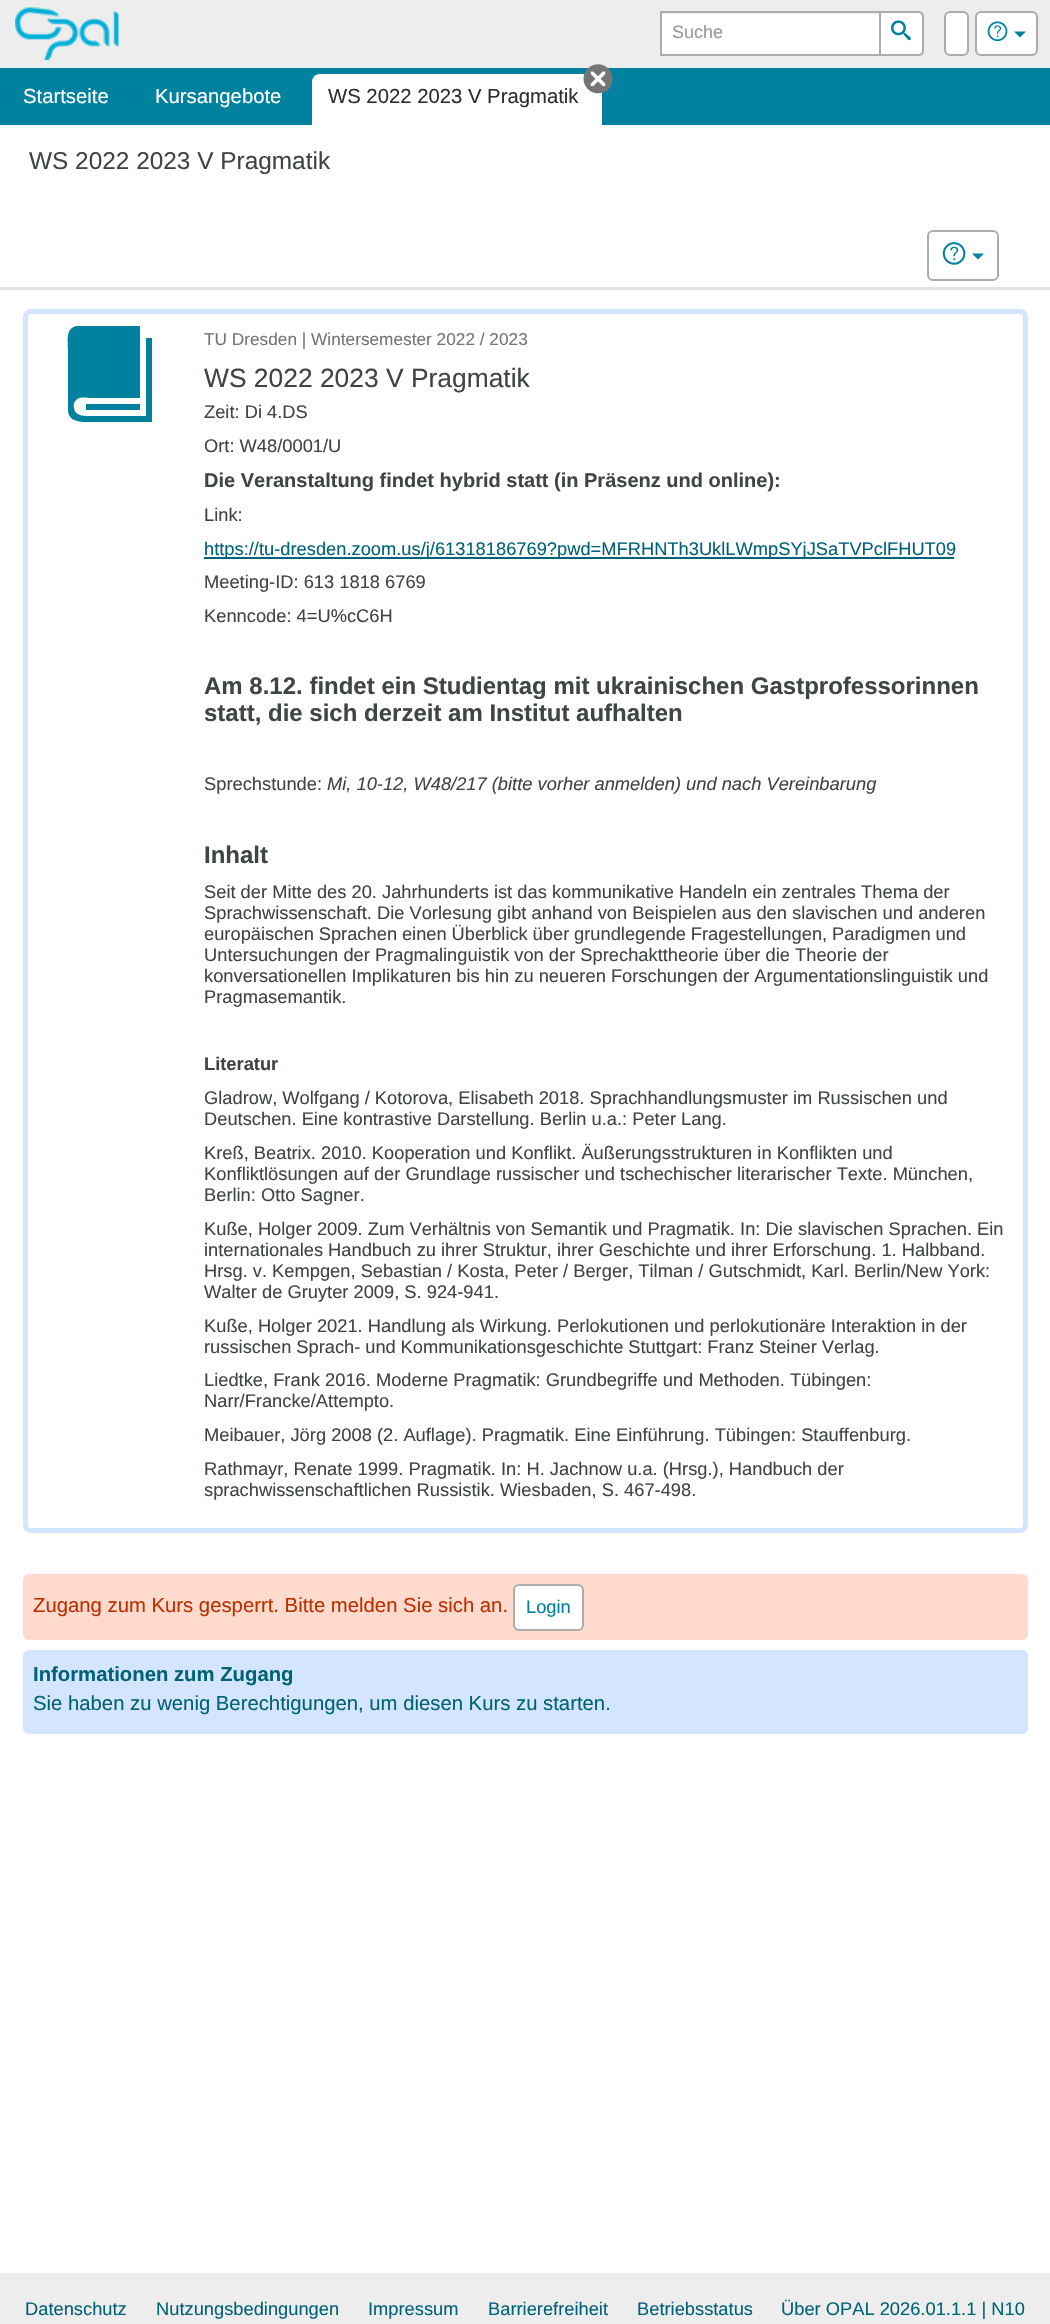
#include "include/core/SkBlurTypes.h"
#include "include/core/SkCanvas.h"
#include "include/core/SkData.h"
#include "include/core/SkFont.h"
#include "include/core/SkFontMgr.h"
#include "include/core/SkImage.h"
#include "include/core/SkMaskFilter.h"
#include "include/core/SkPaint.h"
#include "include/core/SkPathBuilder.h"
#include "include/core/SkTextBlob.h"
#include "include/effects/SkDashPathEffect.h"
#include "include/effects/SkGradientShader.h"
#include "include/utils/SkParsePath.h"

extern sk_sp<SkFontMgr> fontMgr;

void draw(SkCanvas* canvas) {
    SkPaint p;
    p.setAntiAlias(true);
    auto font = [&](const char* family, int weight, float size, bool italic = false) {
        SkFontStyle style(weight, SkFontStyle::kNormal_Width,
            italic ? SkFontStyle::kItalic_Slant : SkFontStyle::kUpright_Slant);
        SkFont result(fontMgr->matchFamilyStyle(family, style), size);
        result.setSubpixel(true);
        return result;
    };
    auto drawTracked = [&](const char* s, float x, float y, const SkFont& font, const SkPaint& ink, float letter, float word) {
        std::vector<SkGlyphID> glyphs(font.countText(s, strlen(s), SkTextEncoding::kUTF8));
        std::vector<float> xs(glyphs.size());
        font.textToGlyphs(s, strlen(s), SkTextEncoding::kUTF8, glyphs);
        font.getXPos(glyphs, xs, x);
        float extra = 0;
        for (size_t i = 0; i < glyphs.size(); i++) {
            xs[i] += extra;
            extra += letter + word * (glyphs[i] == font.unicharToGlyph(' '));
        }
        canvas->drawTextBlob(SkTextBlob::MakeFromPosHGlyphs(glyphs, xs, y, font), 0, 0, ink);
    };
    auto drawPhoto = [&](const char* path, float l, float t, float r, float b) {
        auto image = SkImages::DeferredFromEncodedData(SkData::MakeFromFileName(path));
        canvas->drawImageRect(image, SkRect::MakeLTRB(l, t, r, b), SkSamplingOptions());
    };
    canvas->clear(0xFFFFFFFF);
    p.setColor(0xFFEDEDED);
    canvas->drawRect(SkRect::MakeLTRB(0, 0, 1050, 68), p);
    drawPhoto("media/1.png", 15, 7, 119, 60);
    p.setColor(0xFFFFFFFF);
    canvas->drawRect(SkRect::MakeLTRB(662, 14, 879, 54), p);
    p.setStyle(SkPaint::kStroke_Style);
    p.setStrokeWidth(2);
    p.setColor(0xFFACACAC);
    canvas->drawRect(SkRect::MakeLTRB(661, 12, 880, 55), p);
    auto font1 = font("Liberation Sans", 400, 18);
    p.setStyle(SkPaint::kFill_Style);
    p.setColor(0xFF999999);
    canvas->drawString("Suche", 672, 38, font1, p);
    p.setColor(0xFFFFFFFF);
    canvas->drawPath(SkPathBuilder().moveTo(880, 12).lineTo(919, 12).cubicTo(921, 12, 923, 14, 923, 16).lineTo(923, 51).cubicTo(923, 53, 921, 55, 919, 55).lineTo(880, 55).close().detach(), p);
    p.setStyle(SkPaint::kStroke_Style);
    p.setColor(0xFFACACAC);
    canvas->drawPath(SkPathBuilder().moveTo(880, 12).lineTo(919, 12).cubicTo(921, 12, 923, 14, 923, 16).lineTo(923, 51).cubicTo(923, 53, 921, 55, 919, 55).lineTo(880, 55).close().detach(), p);
    drawPhoto("media/2.png", 891, 20, 911, 41);
    p.setStyle(SkPaint::kFill_Style);
    p.setColor(0xFFFFFFFF);
    canvas->drawRoundRect(SkRect::MakeLTRB(945, 12, 968, 55), 5, 5, p);
    p.setStyle(SkPaint::kStroke_Style);
    p.setColor(0xFFACACAC);
    canvas->drawRoundRect(SkRect::MakeLTRB(945, 12, 968, 55), 5, 5, p);
    p.setStyle(SkPaint::kFill_Style);
    p.setColor(0xFFFFFFFF);
    canvas->drawRoundRect(SkRect::MakeLTRB(976, 12, 1037, 55), 5, 5, p);
    p.setStyle(SkPaint::kStroke_Style);
    p.setColor(0xFFACACAC);
    canvas->drawRoundRect(SkRect::MakeLTRB(976, 12, 1037, 55), 5, 5, p);
    drawPhoto("media/3.png", 987, 21, 1008, 42);
    p.setStyle(SkPaint::kFill_Style);
    p.setColor(0xFF00819D);
    canvas->drawPath(SkPathBuilder().moveTo(1014, 31.5f).lineTo(1026, 31.5f).lineTo(1020, 37.5f).close().detach(), p);
    canvas->drawRect(SkRect::MakeLTRB(0, 68, 1050, 125), p);
    auto font2 = font("Liberation Sans", 400, 20.3f);
    p.setColor(0xFFFFFFFF);
    canvas->drawString("Startseite", 23, 103, font2, p);
    canvas->drawString("Kursangebote", 155, 103, font2, p);
    canvas->drawPath(SkPathBuilder().moveTo(320, 74).lineTo(602, 74).lineTo(602, 125).lineTo(312, 125).lineTo(312, 82).cubicTo(312, 77.5f, 315.5f, 74, 320, 74).close().detach(), p);
    canvas->drawCircle(598, 79, 14, p);
    drawPhoto("media/4.png", 583, 64, 613, 94);
    p.setColor(0xFF2E2E2E);
    canvas->drawString("WS 2022 2023 V Pragmatik", 328, 103, font2, p);
    p.setColor(0xFFE3E3E3);
    canvas->drawRect(SkRect::MakeLTRB(0, 287, 1050, 290), p);
    auto font3 = font("Liberation Sans", 400, 24.4f);
    p.setColor(0xFF3F4444);
    canvas->drawString("WS 2022 2023 V Pragmatik", 29, 169, font3, p);
    p.setStyle(SkPaint::kStroke_Style);
    p.setColor(0xFFACACAC);
    canvas->drawRoundRect(SkRect::MakeLTRB(928, 231, 998, 280), 5, 5, p);
    drawPhoto("media/5.png", 942, 242, 966, 265);
    p.setStyle(SkPaint::kFill_Style);
    p.setColor(0xFF00819D);
    canvas->drawPath(SkPathBuilder().moveTo(972, 253.5f).lineTo(984, 253.5f).lineTo(978, 259.5f).close().detach(), p);
    p.setStyle(SkPaint::kStroke_Style);
    p.setStrokeWidth(5);
    p.setColor(0xFFD4E5FF);
    canvas->drawRoundRect(SkRect::MakeLTRB(25.5f, 311.5f, 1025.5f, 1530.5f), 5.5f, 5.5f, p);
    p.setStyle(SkPaint::kFill_Style);
    p.setColor(0xFF00819D);
    canvas->drawPath(SkPathBuilder().moveTo(146, 338).lineTo(146, 416).lineTo(93, 416).cubicTo(86, 416, 75, 417, 74, 408).cubicTo(73, 405, 74, 402, 76, 400).cubicTo(80, 396, 87, 398, 92, 398).lineTo(140, 398).lineTo(140, 326).lineTo(77, 326).cubicTo(65, 328, 68, 341, 68, 350).lineTo(68, 411).cubicTo(69, 423, 83, 422, 92, 422).lineTo(152, 422).lineTo(152, 338).close().moveTo(86, 404).lineTo(140, 404).lineTo(140, 410).lineTo(86, 410).close().detach(), p);
    auto font4 = font("Liberation Sans", 400, 17.25f);
    p.setColor(0xFF757575);
    canvas->drawString("TU Dresden | Wintersemester 2022 / 2023", 204, 345, font4, p);
    auto font5 = font("Liberation Sans", 400, 26.4f);
    p.setColor(0xFF3F4444);
    canvas->drawString("WS 2022 2023 V Pragmatik", 204, 387, font5, p);
    auto font6 = font("Liberation Sans", 400, 18.3f);
    canvas->drawString("Zeit: Di 4.DS", 204, 418, font6, p);
    canvas->drawString("Ort: W48/0001/U", 204, 452, font6, p);
    auto font7 = font("Liberation Sans", 700, 20);
    canvas->drawString("Die Veranstaltung findet hybrid statt (in Präsenz und online):", 204, 487, font7, p);
    canvas->drawString("Link:", 204, 521, font6, p);
    p.setColor(0xFF006277);
    canvas->drawRect(SkRect::MakeLTRB(204, 557, 954, 559), p);
    canvas->drawString("https://tu-dresden.zoom.us/j/61318186769?pwd=MFRHNTh3UklLWmpSYjJSaTVPclFHUT09", 204, 555, font6, p);
    p.setColor(0xFF3F4444);
    canvas->drawString("Meeting-ID: 613 1818 6769", 204, 588, font6, p);
    canvas->drawString("Kenncode: 4=U%cC6H", 204, 622, font6, p);
    auto font8 = font("Liberation Sans", 700, 24);
    canvas->drawString("Am 8.12. findet ein Studientag mit ukrainischen Gastprofessorinnen", 204, 694, font8, p);
    canvas->drawString("statt, die sich derzeit am Institut aufhalten", 204, 721, font8, p);
    canvas->drawString("Sprechstunde:", 204, 790, font6, p);
    auto font9 = font("Liberation Sans", 400, 18.3f, true);
    canvas->drawString("Mi, 10-12, W48/217 (bitte vorher anmelden) und nach Vereinbarung", 327, 790, font9, p);
    canvas->drawString("Inhalt", 204, 863, font8, p);
    canvas->drawString("Seit der Mitte des 20. Jahrhunderts ist das kommunikative Handeln ein zentrales Thema der", 204, 898, font6, p);
    canvas->drawString("Sprachwissenschaft. Die Vorlesung gibt anhand von Beispielen aus den slavischen und anderen", 204, 919, font6, p);
    drawTracked("europäischen Sprachen einen Überblick über grundlegende Fragestellungen, Paradigmen und", 204, 940, font6, p, 0, -0.25f);
    {
        const struct { const char* s; float x, y; } items[] = {
            {"Untersuchungen der Pragmalinguistik von der Sprechakttheorie über die Theorie der", 204, 961},
            {"konversationellen Implikaturen bis hin zu neueren Forschungen der Argumentationslinguistik und", 204, 982},
            {"Pragmasemantik.", 204, 1003},
        };
        for (auto [s, x, y] : items) {
            canvas->drawString(s, x, y, font6, p);
        }
    }
    auto font10 = font("Liberation Sans", 700, 18.3f);
    canvas->drawString("Literatur", 204, 1070, font10, p);
    {
        const struct { const char* s; float x, y; } items[] = {
            {"Gladrow, Wolfgang / Kotorova, Elisabeth 2018. Sprachhandlungsmuster im Russischen und", 204, 1104},
            {"Deutschen. Eine kontrastive Darstellung. Berlin u.a.: Peter Lang.", 204, 1125},
            {"Kreß, Beatrix. 2010. Kooperation und Konflikt. Äußerungsstrukturen in Konflikten und", 204, 1159},
            {"Konfliktlösungen auf der Grundlage russischer und tschechischer literarischer Texte. München,", 204, 1180},
            {"Berlin: Otto Sagner.", 204, 1201},
            {"Kuße, Holger 2009. Zum Verhältnis von Semantik und Pragmatik. In: Die slavischen Sprachen. Ein", 204, 1235},
            {"internationales Handbuch zu ihrer Struktur, ihrer Geschichte und ihrer Erforschung. 1. Halbband.", 204, 1256},
            {"Hrsg. v. Kempgen, Sebastian / Kosta, Peter / Berger, Tilman / Gutschmidt, Karl. Berlin/New York:", 204, 1277},
            {"Walter de Gruyter 2009, S. 924-941.", 204, 1298},
            {"Kuße, Holger 2021. Handlung als Wirkung. Perlokutionen und perlokutionäre Interaktion in der", 204, 1332},
        };
        for (auto [s, x, y] : items) {
            canvas->drawString(s, x, y, font6, p);
        }
    }
    drawTracked("russischen Sprach- und Kommunikationsgeschichte Stuttgart: Franz Steiner Verlag.", 204, 1353, font6, p, 0, -0.25f);
    {
        const struct { const char* s; float x, y; } items[] = {
            {"Liedtke, Frank 2016. Moderne Pragmatik: Grundbegriffe und Methoden. Tübingen:", 204, 1386},
            {"Narr/Francke/Attempto.", 204, 1407},
            {"Meibauer, Jörg 2008 (2. Auflage). Pragmatik. Eine Einführung. Tübingen: Stauffenburg.", 204, 1441},
            {"Rathmayr, Renate 1999. Pragmatik. In: H. Jachnow u.a. (Hrsg.), Handbuch der", 204, 1475},
            {"sprachwissenschaftlichen Russistik. Wiesbaden, S. 467-498.", 204, 1496},
        };
        for (auto [s, x, y] : items) {
            canvas->drawString(s, x, y, font6, p);
        }
    }
    p.setColor(0xFFFFDACD);
    canvas->drawRoundRect(SkRect::MakeLTRB(23, 1574, 1028, 1640), 6, 6, p);
    p.setColor(0xFFBC3000);
    canvas->drawString("Zugang zum Kurs gesperrt. Bitte melden Sie sich an.", 33, 1612, font2, p);
    p.setColor(0xFFFFFFFF);
    canvas->drawRoundRect(SkRect::MakeLTRB(514, 1585, 583, 1630), 5, 5, p);
    p.setStyle(SkPaint::kStroke_Style);
    p.setStrokeWidth(2);
    p.setColor(0xFFACACAC);
    canvas->drawRoundRect(SkRect::MakeLTRB(514, 1585, 583, 1630), 5, 5, p);
    p.setStyle(SkPaint::kFill_Style);
    p.setColor(0xFF00819D);
    canvas->drawString("Login", 526, 1613, font6, p);
    p.setColor(0xFFD4E5FF);
    canvas->drawRoundRect(SkRect::MakeLTRB(23, 1650, 1028, 1734), 6, 6, p);
    auto font11 = font("Liberation Sans", 700, 20.3f);
    p.setColor(0xFF006277);
    canvas->drawString("Informationen zum Zugang", 33, 1681, font11, p);
    canvas->drawString("Sie haben zu wenig Berechtigungen, um diesen Kurs zu starten.", 33, 1710, font2, p);
    p.setColor(0xFFEDEDED);
    canvas->drawRect(SkRect::MakeLTRB(0, 2273, 1050, 2324), p);
    p.setColor(0xFF006277);
    {
        const struct { const char* s; float x, y; } items[] = {
            {"Datenschutz", 25, 2315},
            {"Nutzungsbedingungen", 156, 2315},
            {"Impressum", 368, 2315},
            {"Barrierefreiheit", 488, 2315},
            {"Betriebsstatus", 637, 2315},
            {"Über OPAL 2026.01.1.1 | N10", 781, 2315},
        };
        for (auto [s, x, y] : items) {
            canvas->drawString(s, x, y, font6, p);
        }
    }
}
